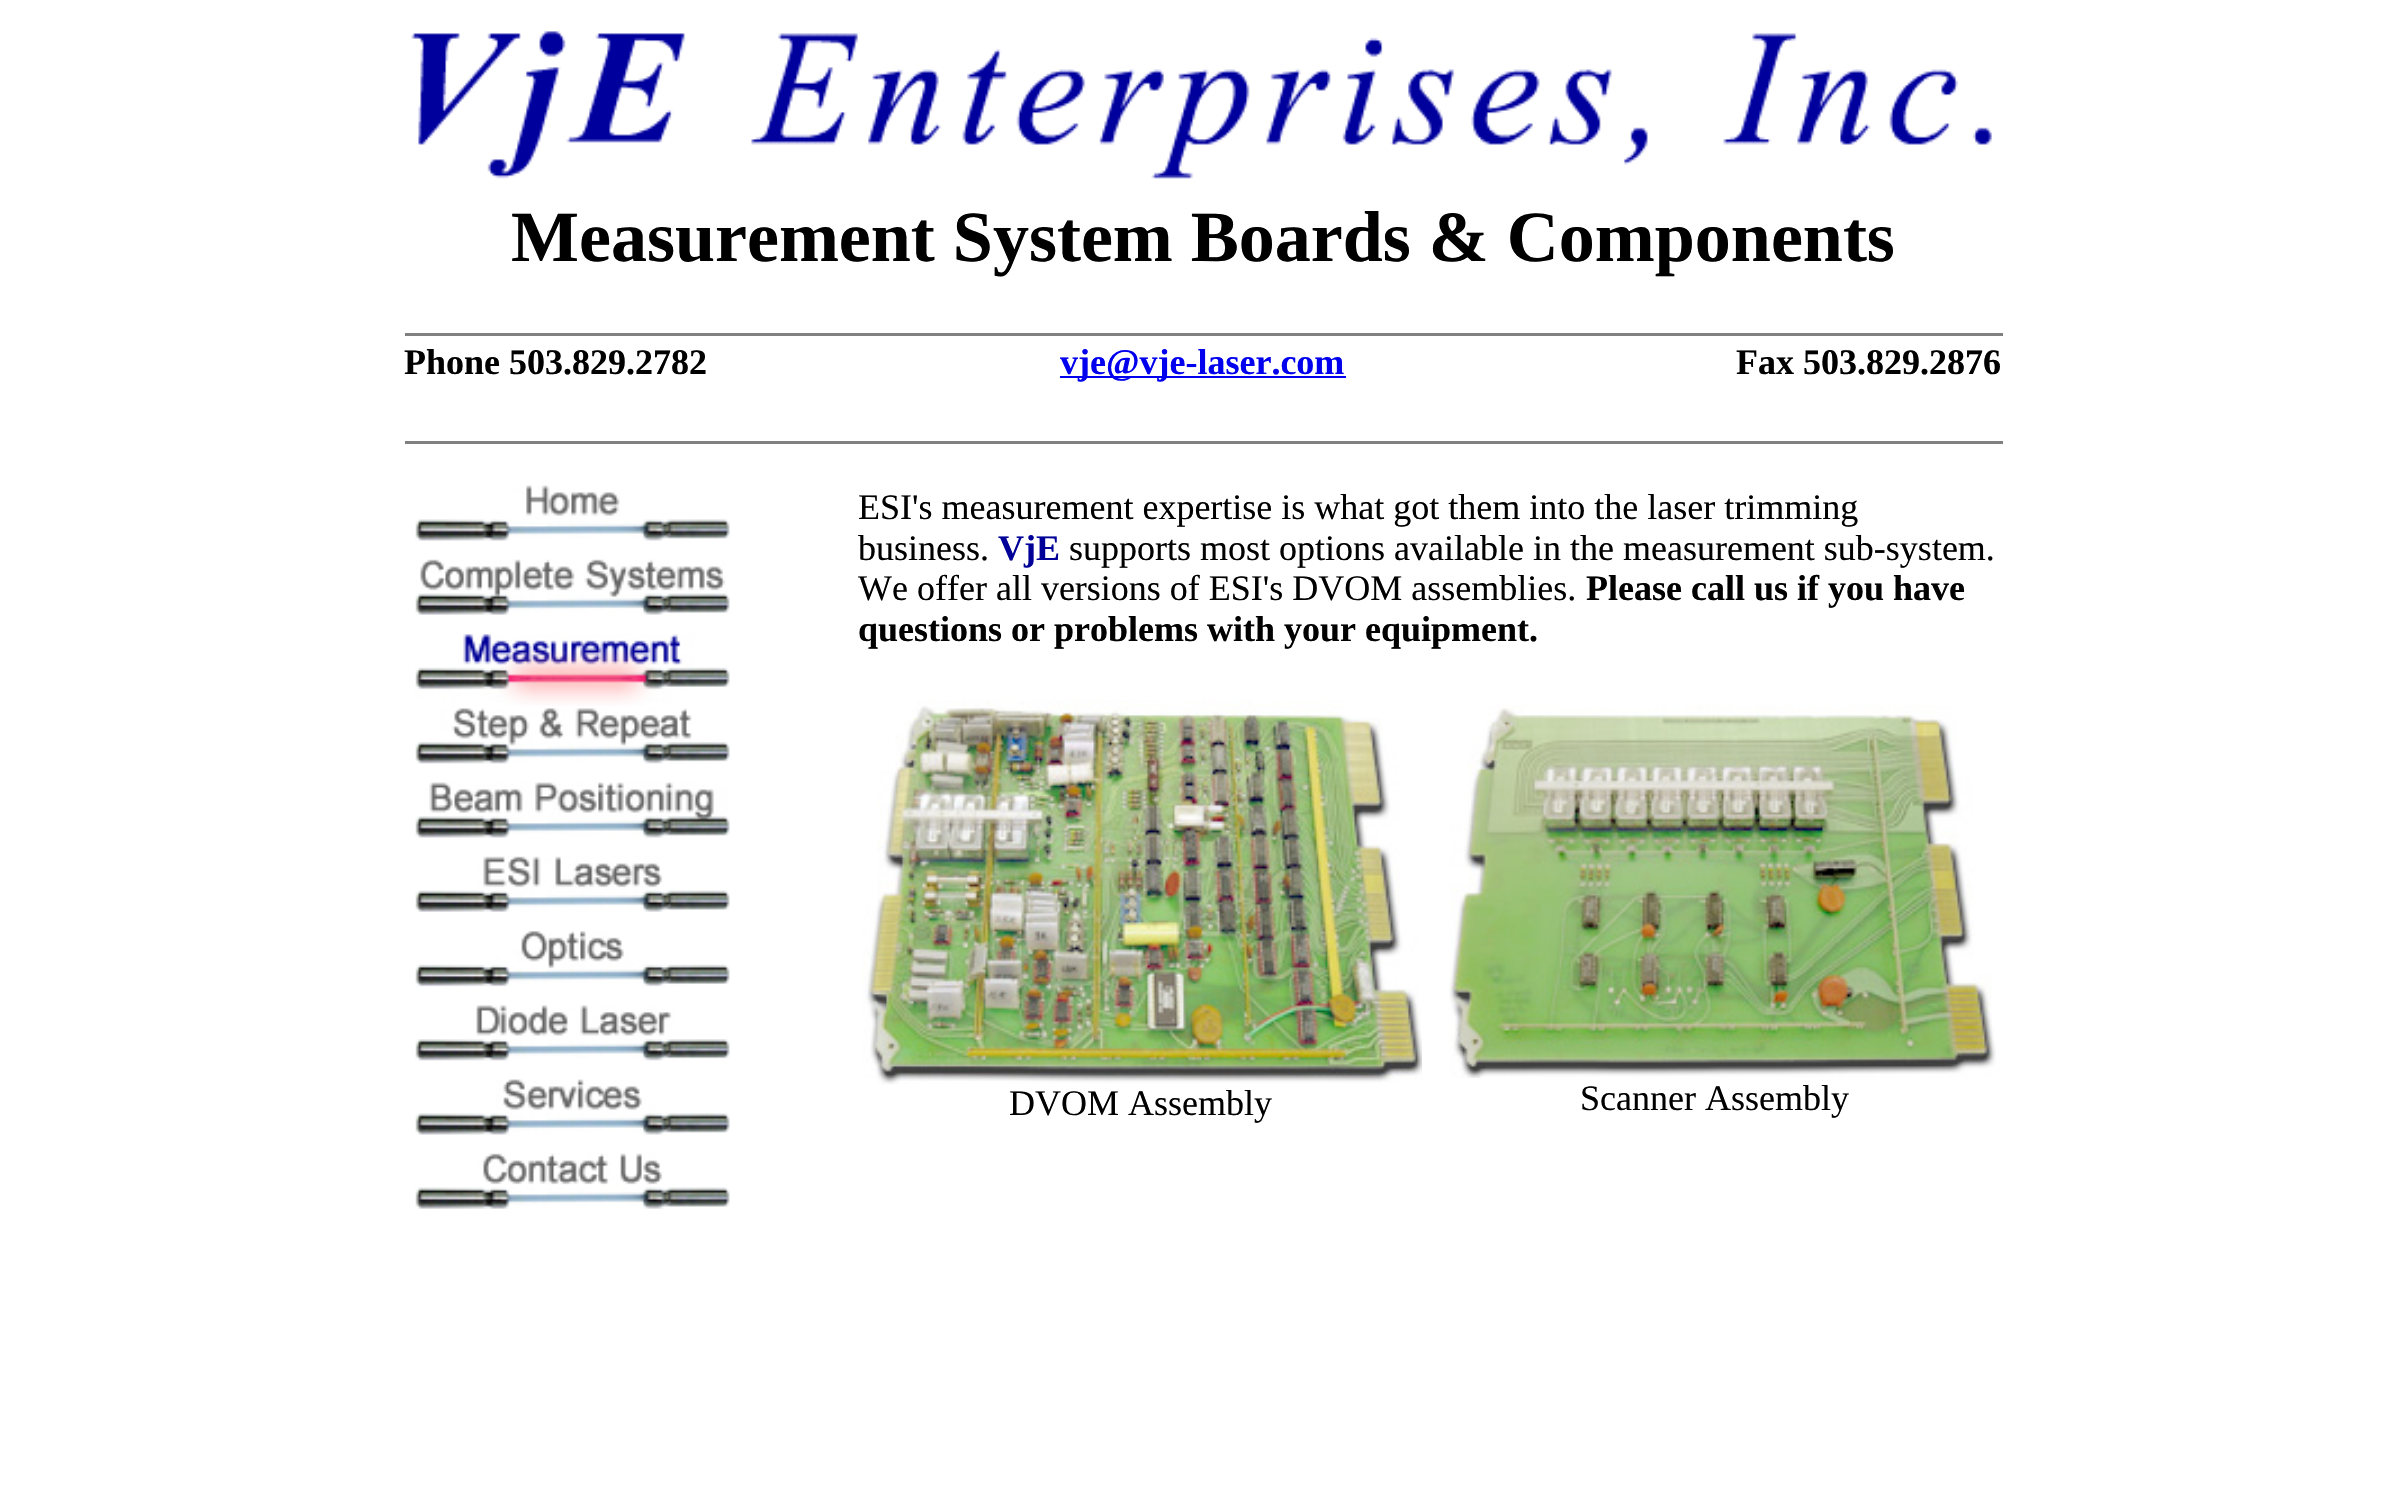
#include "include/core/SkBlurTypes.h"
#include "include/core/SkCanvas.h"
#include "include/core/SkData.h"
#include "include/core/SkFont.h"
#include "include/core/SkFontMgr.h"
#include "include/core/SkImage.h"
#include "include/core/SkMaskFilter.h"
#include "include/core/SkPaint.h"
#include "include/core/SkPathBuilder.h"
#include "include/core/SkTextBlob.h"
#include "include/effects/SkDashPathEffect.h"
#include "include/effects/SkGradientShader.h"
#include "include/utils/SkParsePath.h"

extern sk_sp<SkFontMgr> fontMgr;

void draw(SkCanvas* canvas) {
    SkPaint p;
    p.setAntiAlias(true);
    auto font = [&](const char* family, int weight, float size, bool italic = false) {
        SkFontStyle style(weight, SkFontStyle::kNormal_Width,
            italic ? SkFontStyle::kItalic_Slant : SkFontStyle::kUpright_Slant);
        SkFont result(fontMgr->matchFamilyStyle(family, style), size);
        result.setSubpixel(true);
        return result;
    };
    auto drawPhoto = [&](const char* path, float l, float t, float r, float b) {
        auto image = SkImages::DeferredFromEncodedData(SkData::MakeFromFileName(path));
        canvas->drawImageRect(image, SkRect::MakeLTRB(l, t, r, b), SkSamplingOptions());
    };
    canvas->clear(0xFFFFFFFF);
    drawPhoto("media/1.png", 411, 31, 1992, 179);
    auto font1 = font("Liberation Serif", 700, 72);
    p.setColor(0xFF000000);
    canvas->drawString("Measurement System Boards & Components", 511, 261, font1, p);
    p.setColor(0xFF808080);
    canvas->drawRect(SkRect::MakeLTRB(405, 333, 2003, 336), p);
    auto font2 = font("Liberation Serif", 700, 36);
    p.setColor(0xFF000000);
    canvas->drawString("Phone 503.829.2782", 404, 374, font2, p);
    p.setColor(0xFF0000EE);
    canvas->drawRect(SkRect::MakeLTRB(1060, 376, 1346, 378), p);
    canvas->drawString("vje@vje-laser.com", 1060, 374, font2, p);
    p.setColor(0xFF000000);
    canvas->drawString("Fax 503.829.2876", 1736, 374, font2, p);
    p.setColor(0xFF808080);
    canvas->drawRect(SkRect::MakeLTRB(405, 441, 2003, 444), p);
    drawPhoto("media/2.png", 415, 485, 730, 541);
    auto font3 = font("Liberation Serif", 400, 36);
    p.setColor(0xFF000000);
    canvas->drawString("ESI's measurement expertise is what got them into the laser trimming", 858, 519, font3, p);
    canvas->drawString("business.", 858, 560, font3, p);
    p.setColor(0xFF000099);
    canvas->drawString("VjE", 998, 560, font2, p);
    p.setColor(0xFF000000);
    canvas->drawString("supports most options available in the measurement sub-system.", 1069, 560, font3, p);
    canvas->drawString("We offer all versions of ESI's DVOM assemblies.", 858, 600, font3, p);
    canvas->drawString("Please call us if you have", 1586, 600, font2, p);
    canvas->drawString("questions or problems with your equipment.", 858, 641, font2, p);
    drawPhoto("media/3.png", 862, 700, 1422, 1085);
    canvas->drawString("DVOM Assembly", 1009, 1115, font3, p);
    drawPhoto("media/4.png", 1449, 705, 1996, 1078);
    canvas->drawString("Scanner Assembly", 1580, 1110, font3, p);
    drawPhoto("media/5.png", 415, 559, 730, 615);
    drawPhoto("media/6.png", 415, 634, 730, 706);
    drawPhoto("media/7.png", 415, 708, 730, 764);
    drawPhoto("media/8.png", 415, 782, 730, 838);
    drawPhoto("media/9.png", 415, 856, 730, 912);
    drawPhoto("media/10.png", 415, 931, 730, 987);
    drawPhoto("media/11.png", 415, 1005, 730, 1061);
    drawPhoto("media/12.png", 415, 1079, 730, 1135);
    drawPhoto("media/13.png", 415, 1153, 730, 1209);
}
